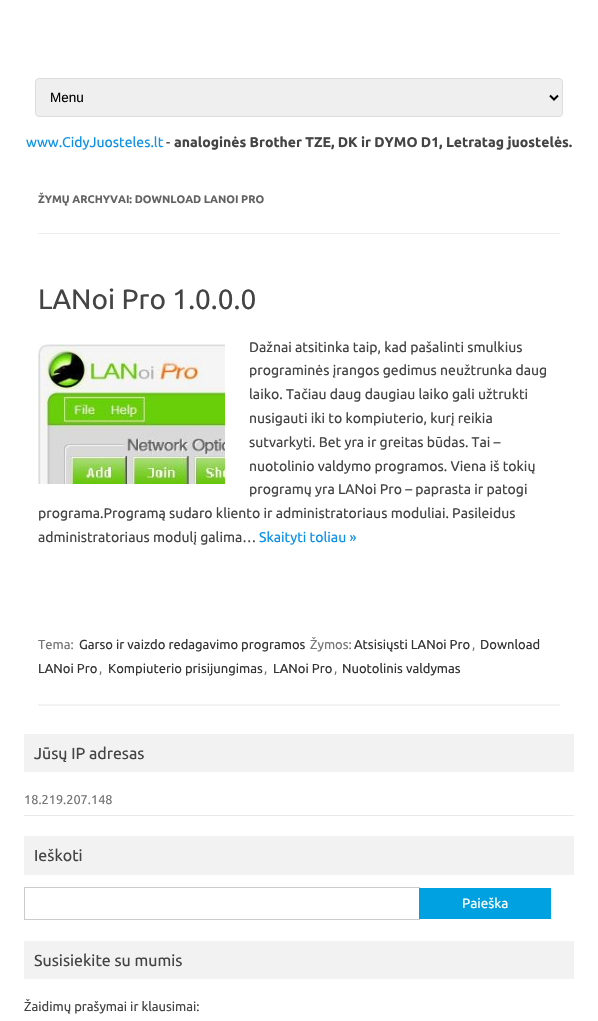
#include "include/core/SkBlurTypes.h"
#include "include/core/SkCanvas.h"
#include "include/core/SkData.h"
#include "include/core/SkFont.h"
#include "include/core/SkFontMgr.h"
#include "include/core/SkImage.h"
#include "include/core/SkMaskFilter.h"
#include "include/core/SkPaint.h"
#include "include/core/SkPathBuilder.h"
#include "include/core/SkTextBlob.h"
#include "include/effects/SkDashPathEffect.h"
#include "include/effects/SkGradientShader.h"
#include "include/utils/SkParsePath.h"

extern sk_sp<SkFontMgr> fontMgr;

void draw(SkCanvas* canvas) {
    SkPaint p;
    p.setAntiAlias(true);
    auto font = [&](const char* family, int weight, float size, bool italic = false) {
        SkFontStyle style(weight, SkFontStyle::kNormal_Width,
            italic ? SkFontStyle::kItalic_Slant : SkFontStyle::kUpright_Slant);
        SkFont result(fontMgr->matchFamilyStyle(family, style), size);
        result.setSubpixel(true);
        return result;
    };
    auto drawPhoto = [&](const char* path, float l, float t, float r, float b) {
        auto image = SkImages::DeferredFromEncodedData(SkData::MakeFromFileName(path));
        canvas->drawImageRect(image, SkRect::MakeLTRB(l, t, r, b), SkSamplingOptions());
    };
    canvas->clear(0xFFFFFFFF);
    p.setColor(0xFFEFEFEF);
    canvas->drawRoundRect(SkRect::MakeLTRB(35.5f, 78.5f, 562.5f, 116.5f), 3.5f, 3.5f, p);
    p.setStyle(SkPaint::kStroke_Style);
    p.setStrokeWidth(1);
    p.setColor(0xFFDDDDDD);
    canvas->drawRoundRect(SkRect::MakeLTRB(35.5f, 78.5f, 562.5f, 116.5f), 3.5f, 3.5f, p);
    p.setStrokeWidth(2);
    p.setColor(0xFF000000);
    canvas->drawPath(SkPathBuilder().moveTo(550, 95.5f).lineTo(554, 99.5f).lineTo(558, 95.5f).detach(), p);
    auto font1 = font("Liberation Sans", 400, 13.5f);
    p.setStyle(SkPaint::kFill_Style);
    canvas->drawString("Menu", 50, 102, font1, p);
    auto font2 = font("Ubuntu", 400, 14);
    p.setColor(0xFF0B91EA);
    canvas->drawString("www.CidyJuosteles.lt", 26, 147, font2, p);
    p.setColor(0xFF444444);
    canvas->drawString("-", 166, 147, font2, p);
    auto font3 = font("Ubuntu", 700, 14);
    canvas->drawString("analoginės Brother TZE, DK ir DYMO D1, Letratag juostelės.", 174, 147, font3, p);
    p.setColor(0xFFEDEDED);
    canvas->drawRect(SkRect::MakeLTRB(38, 233, 560, 234), p);
    auto font4 = font("Ubuntu", 700, 11);
    p.setColor(0xFF636363);
    canvas->drawString("ŽYMŲ ARCHYVAI: DOWNLOAD LANOI PRO", 38, 203, font4, p);
    p.setColor(0xFFF3F3F3);
    canvas->drawRect(SkRect::MakeLTRB(38, 704, 560, 706), p);
    auto font5 = font("Ubuntu", 400, 28);
    p.setColor(0xFF444444);
    canvas->drawString("LANoi Pro 1.0.0.0", 38, 309, font5, p);
    {
        const struct { const char* s; float x, y; } items[] = {
            {"Dažnai atsitinka taip, kad pašalinti smulkius", 249, 352},
            {"programinės įrangos gedimus neužtrunka daug", 249, 375},
            {"laiko. Tačiau daug daugiau laiko gali užtrukti", 249, 399},
            {"nusigauti iki to kompiuterio, kurį reikia", 249, 423},
            {"sutvarkyti. Bet yra ir greitas būdas. Tai –", 249, 447},
            {"nuotolinio valdymo programos. Viena iš tokių", 249, 471},
            {"programų yra LANoi Pro – paprasta ir patogi", 249, 494},
            {"programa.Programą sudaro kliento ir administratoriaus moduliai. Pasileidus", 38, 518},
            {"administratoriaus modulį galima…", 38, 542},
        };
        for (auto [s, x, y] : items) {
            canvas->drawString(s, x, y, font2, p);
        }
    }
    p.setColor(0xFF0B91EA);
    canvas->drawString("Skaityti toliau »", 259, 542, font2, p);
    drawPhoto("media/1.png", 38, 344, 225, 484);
    auto font6 = font("Ubuntu", 400, 13);
    p.setColor(0xFF757575);
    canvas->drawString("Tema:", 38, 649, font6, p);
    p.setColor(0xFF333333);
    canvas->drawString("Garso ir vaizdo redagavimo programos", 79, 649, font6, p);
    p.setColor(0xFF757575);
    canvas->drawString("Žymos:", 310, 649, font6, p);
    p.setColor(0xFF333333);
    canvas->drawString("Atsisiųsti LANoi Pro", 354, 649, font6, p);
    p.setColor(0xFF757575);
    canvas->drawString(",", 472, 649, font6, p);
    p.setColor(0xFF333333);
    canvas->drawString("Download", 480, 649, font6, p);
    canvas->drawString("LANoi Pro", 38, 673, font6, p);
    p.setColor(0xFF757575);
    canvas->drawString(",", 99, 673, font6, p);
    p.setColor(0xFF333333);
    canvas->drawString("Kompiuterio prisijungimas", 108, 673, font6, p);
    p.setColor(0xFF757575);
    canvas->drawString(",", 264, 673, font6, p);
    p.setColor(0xFF333333);
    canvas->drawString("LANoi Pro", 273, 673, font6, p);
    p.setColor(0xFF757575);
    canvas->drawString(",", 334, 673, font6, p);
    p.setColor(0xFF333333);
    canvas->drawString("Nuotolinis valdymas", 342, 673, font6, p);
    p.setColor(0xFFF2F2F2);
    canvas->drawRect(SkRect::MakeLTRB(24, 734, 574, 772), p);
    auto font7 = font("Ubuntu", 400, 16);
    p.setColor(0xFF444444);
    canvas->drawString("Jūsų IP adresas", 34, 759, font7, p);
    p.setColor(0xFFE9E9E9);
    canvas->drawRect(SkRect::MakeLTRB(24, 815, 574, 816), p);
    auto font8 = font("Ubuntu", 400, 12.75f);
    p.setColor(0xFF757575);
    canvas->drawString("18.219.207.148", 24, 804, font8, p);
    p.setColor(0xFFF2F2F2);
    canvas->drawRect(SkRect::MakeLTRB(24, 836, 574, 875), p);
    p.setColor(0xFF444444);
    canvas->drawString("Ieškoti", 34, 861, font7, p);
    p.setStyle(SkPaint::kStroke_Style);
    p.setStrokeWidth(1);
    p.setColor(0xFFCCCCCC);
    canvas->drawRect(SkRect::MakeLTRB(24.5f, 887.5f, 419.5f, 919.5f), p);
    p.setStyle(SkPaint::kFill_Style);
    p.setColor(0xFF00A1E0);
    canvas->drawRect(SkRect::MakeLTRB(419, 888, 551, 919), p);
    auto font9 = font("Ubuntu", 400, 13.5f);
    p.setColor(0xFFFFFFFF);
    canvas->drawString("Paieška", 462, 908, font9, p);
    p.setColor(0xFFF2F2F2);
    canvas->drawRect(SkRect::MakeLTRB(24, 941, 574, 979), p);
    p.setColor(0xFF444444);
    canvas->drawString("Susisiekite su mumis", 34, 966, font7, p);
    canvas->drawString("Žaidimų prašymai ir klausimai:", 24, 1011, font6, p);
}
